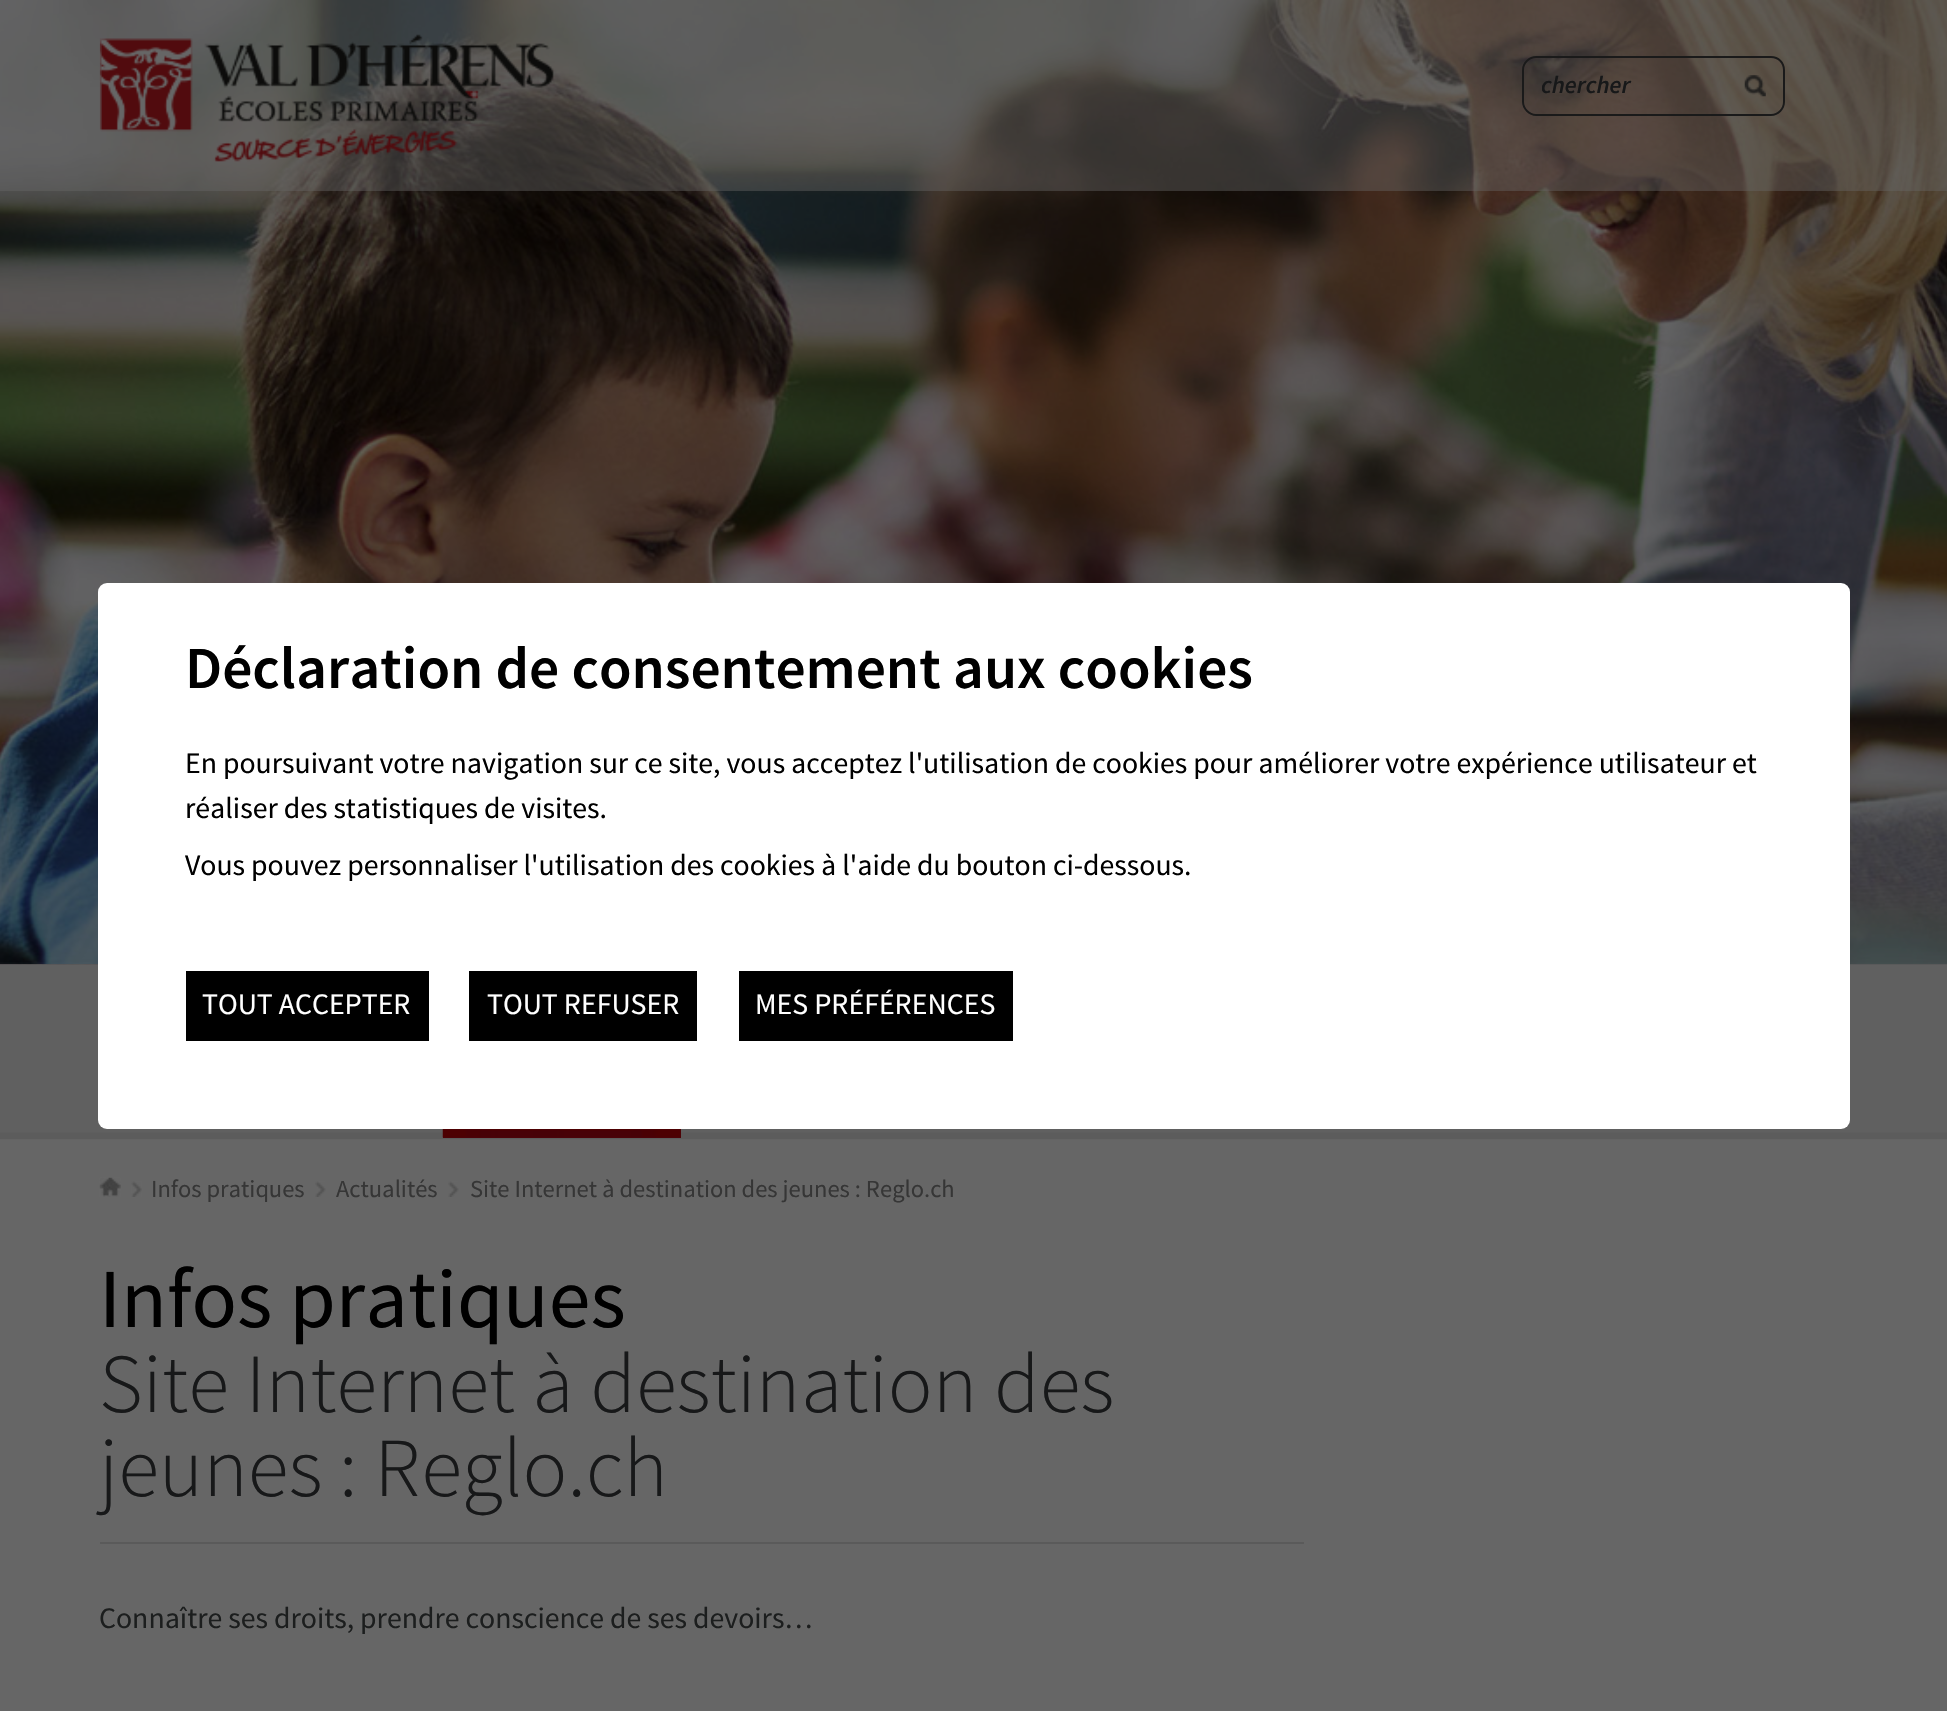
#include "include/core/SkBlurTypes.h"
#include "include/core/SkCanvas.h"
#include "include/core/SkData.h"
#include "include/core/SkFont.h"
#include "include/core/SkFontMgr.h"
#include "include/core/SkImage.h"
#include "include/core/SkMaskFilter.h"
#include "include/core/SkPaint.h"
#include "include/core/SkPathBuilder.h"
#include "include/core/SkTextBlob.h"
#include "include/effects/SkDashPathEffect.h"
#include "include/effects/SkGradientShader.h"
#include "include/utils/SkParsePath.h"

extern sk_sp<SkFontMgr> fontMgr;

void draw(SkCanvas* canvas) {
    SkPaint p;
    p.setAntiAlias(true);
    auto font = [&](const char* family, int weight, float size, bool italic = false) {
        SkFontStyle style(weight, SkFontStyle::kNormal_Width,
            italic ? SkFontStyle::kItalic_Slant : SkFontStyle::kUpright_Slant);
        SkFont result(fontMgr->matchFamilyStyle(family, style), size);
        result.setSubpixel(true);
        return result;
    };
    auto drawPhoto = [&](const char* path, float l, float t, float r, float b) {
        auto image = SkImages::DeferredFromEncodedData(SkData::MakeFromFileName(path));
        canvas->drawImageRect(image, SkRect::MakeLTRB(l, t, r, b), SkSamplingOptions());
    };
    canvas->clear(0xFF666666);
    drawPhoto("media/1.png", 0, 964, 1947, 1140);
    drawPhoto("media/3.png", 0, 964, 1947, 965);
    drawPhoto("media/4.png", 0, 964, 1947, 965);
    drawPhoto("media/5.png", 0, 964, 1947, 965);
    drawPhoto("media/2.png", 0, 0, 1947, 965);
    p.setColor(0x6B666666);
    canvas->drawRect(SkRect::MakeLTRB(0, 0, 1947, 191), p);
    drawPhoto("media/6.png", 99, 34, 554, 162);
    p.setColor(0xFF1A1A1A);
    canvas->drawPath(SkPathBuilder(SkPathFillType::kEvenOdd).moveTo(1536, 56).lineTo(1715, 56).lineTo(1715, 116).lineTo(1536, 116).cubicTo(1529, 116, 1522, 109, 1522, 102).lineTo(1522, 70).cubicTo(1522, 62, 1529, 56, 1536, 56).close().moveTo(1536, 58).lineTo(1715, 58).lineTo(1715, 114).lineTo(1536, 114).cubicTo(1530, 114, 1524, 108, 1524, 102).lineTo(1524, 70).cubicTo(1524, 63, 1530, 58, 1536, 58).close().detach(), p);
    canvas->save();
    canvas->clipRect(SkRect::MakeLTRB(1542, 56, 1712, 116));
    auto font1 = font("Source Sans Pro", 600, 24.5f, true);
    p.setColor(0xFF171819);
    canvas->drawString("chercher", 1541, 93, font1, p);
    canvas->restore();
    drawPhoto("media/7.png", 1744, 75, 1766, 97);
    p.setColor(0xFF1A1A1A);
    canvas->drawPath(SkPathBuilder(SkPathFillType::kEvenOdd).moveTo(1715, 56).lineTo(1771, 56).cubicTo(1779, 56, 1785, 62, 1785, 70).lineTo(1785, 102).cubicTo(1785, 109, 1779, 116, 1771, 116).lineTo(1715, 116).close().moveTo(1715, 58).lineTo(1771, 58).cubicTo(1778, 58, 1783, 63, 1783, 70).lineTo(1783, 102).cubicTo(1783, 108, 1778, 114, 1771, 114).lineTo(1715, 114).close().detach(), p);
    p.setColor(0xFF4E0209);
    canvas->drawRect(SkRect::MakeLTRB(443, 1129, 681, 1138), p);
    drawPhoto("media/8.png", 442, 1129, 681, 1138);
    p.setColor(0xFFFFFFFF);
    canvas->drawRoundRect(SkRect::MakeLTRB(98, 583, 1850, 1129), 9, 9, p);
    auto font2 = font("Source Sans Pro", 600, 59.5f);
    p.setColor(0xFF000000);
    canvas->drawString("Déclaration de consentement aux cookies", 185, 688, font2, p);
    auto font3 = font("Source Sans Pro", 400, 29.75f);
    {
        const struct { const char* s; float x, y; } items[] = {
            {"En poursuivant votre navigation sur ce site, vous acceptez l'utilisation de cookies pour améliorer votre expérience utilisateur et", 185, 773},
            {"réaliser des statistiques de visites.", 185, 818},
            {"Vous pouvez personnaliser l'utilisation des cookies à l'aide du bouton ci-dessous.", 185, 875},
        };
        for (auto [s, x, y] : items) {
            canvas->drawString(s, x, y, font3, p);
        }
    }
    canvas->drawRect(SkRect::MakeLTRB(186, 971, 429, 1041), p);
    p.setColor(0xFFFFFFFF);
    canvas->drawString("TOUT ACCEPTER", 202, 1014, font3, p);
    p.setColor(0xFF000000);
    canvas->drawRect(SkRect::MakeLTRB(469, 971, 697, 1041), p);
    p.setColor(0xFFFFFFFF);
    canvas->drawString("TOUT REFUSER", 487, 1014, font3, p);
    p.setColor(0xFF000000);
    canvas->drawRect(SkRect::MakeLTRB(739, 971, 1013, 1041), p);
    p.setColor(0xFFFFFFFF);
    canvas->drawString("MES PRÉFÉRENCES", 755, 1014, font3, p);
    drawPhoto("media/9.png", 99, 1177, 121, 1197);
    drawPhoto("media/10.png", 131, 1181, 142, 1197);
    auto font4 = font("Source Sans Pro", 400, 24.5f);
    p.setColor(0xFF363636);
    canvas->drawString("Infos pratiques", 151, 1197, font4, p);
    drawPhoto("media/11.png", 315, 1181, 326, 1197);
    canvas->drawString("Actualités", 336, 1197, font4, p);
    drawPhoto("media/12.png", 448, 1181, 459, 1197);
    canvas->drawString("Site Internet à destination des jeunes : Reglo.ch", 470, 1197, font4, p);
    auto font5 = font("Source Sans Pro", 400, 84);
    p.setColor(0xFF000000);
    canvas->drawString("Infos pratiques", 99, 1327, font5, p);
    auto font6 = font("Source Sans Pro", 300, 84);
    p.setColor(0xFF171819);
    canvas->drawString("Site Internet à destination des", 99, 1412, font6, p);
    canvas->drawString("jeunes : Reglo.ch", 99, 1496, font6, p);
    p.setColor(0xFF5A5A5A);
    canvas->drawRect(SkRect::MakeLTRB(100, 1542, 1304, 1544), p);
    p.setColor(0xFF1C1E1E);
    canvas->drawString("Connaître ses droits, prendre conscience de ses devoirs…", 99, 1628, font3, p);
}
